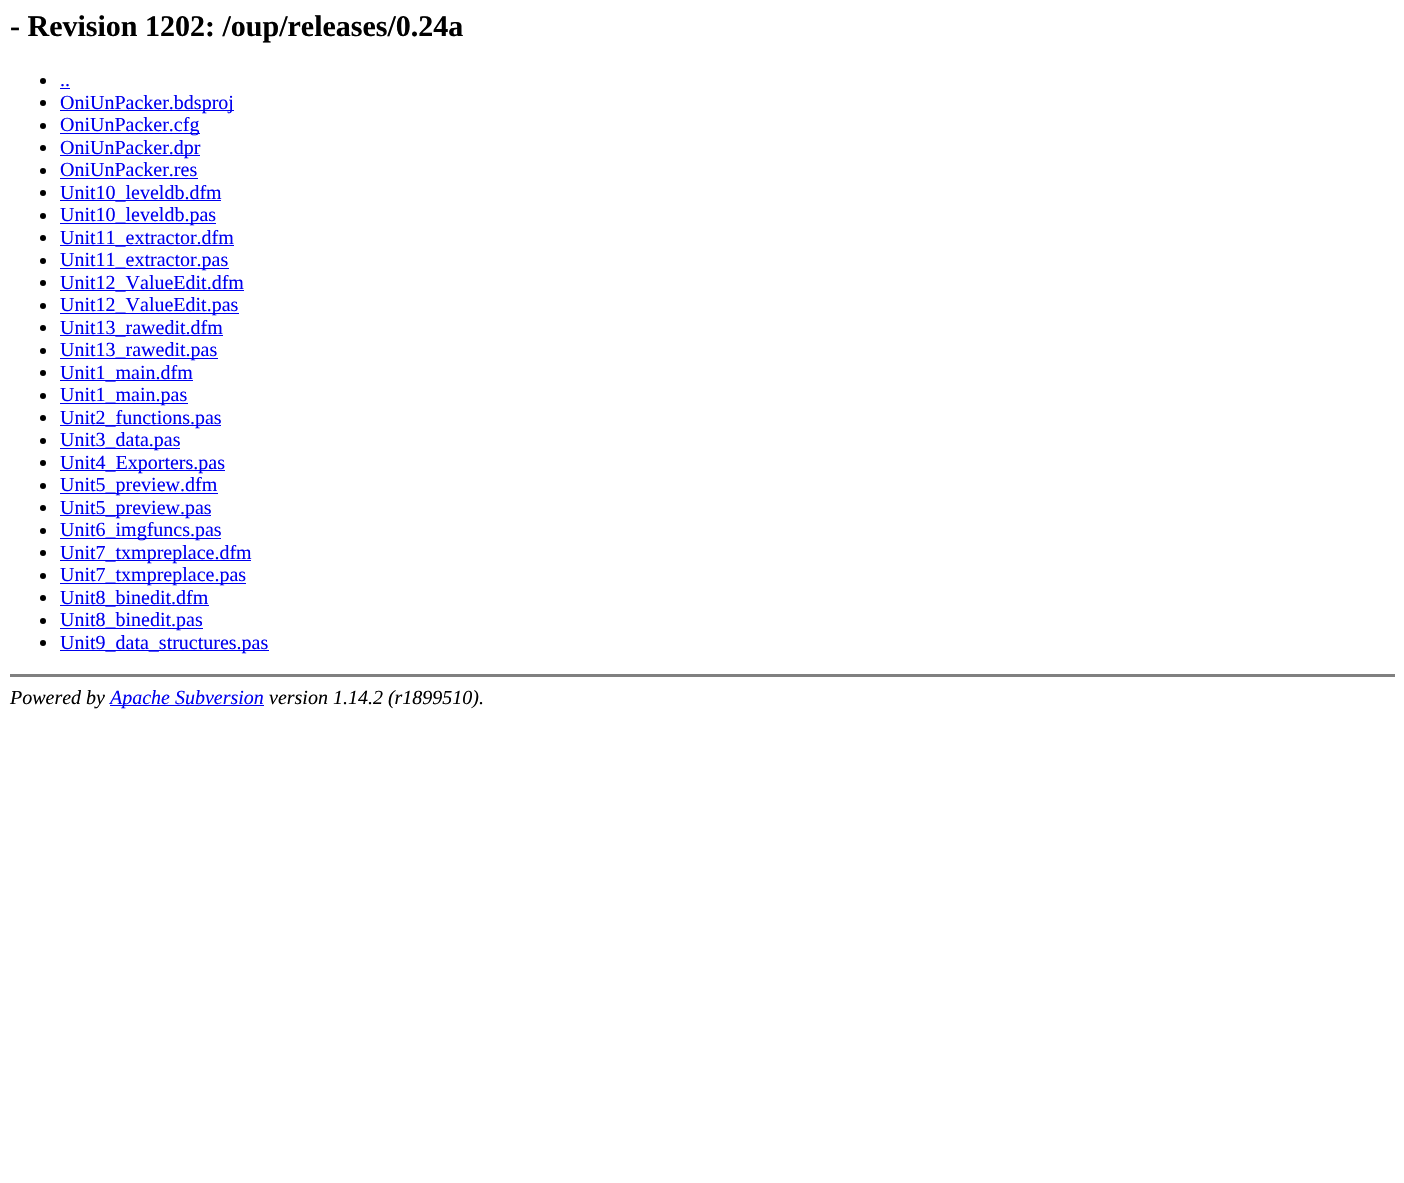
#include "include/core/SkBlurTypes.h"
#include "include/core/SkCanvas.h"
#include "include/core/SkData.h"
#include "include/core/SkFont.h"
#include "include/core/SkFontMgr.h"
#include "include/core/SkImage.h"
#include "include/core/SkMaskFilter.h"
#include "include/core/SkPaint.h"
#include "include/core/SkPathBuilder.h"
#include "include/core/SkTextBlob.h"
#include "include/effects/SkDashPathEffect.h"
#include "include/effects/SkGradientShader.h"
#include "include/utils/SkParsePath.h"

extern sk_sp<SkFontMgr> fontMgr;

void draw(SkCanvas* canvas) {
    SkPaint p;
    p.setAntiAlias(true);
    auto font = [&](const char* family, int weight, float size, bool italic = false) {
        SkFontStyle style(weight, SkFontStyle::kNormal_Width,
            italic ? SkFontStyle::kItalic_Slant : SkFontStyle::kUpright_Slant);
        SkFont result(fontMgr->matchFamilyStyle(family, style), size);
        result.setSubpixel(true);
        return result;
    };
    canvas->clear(0xFFFFFFFF);
    auto font1 = font("Liberation Serif", 700, 30);
    p.setColor(0xFF000000);
    canvas->drawString("- Revision 1202: /oup/releases/0.24a", 10, 36, font1, p);
    canvas->drawCircle(43, 81, 3, p);
    auto font2 = font("Liberation Serif", 400, 20);
    p.setColor(0xFF0000EE);
    canvas->drawString("..", 60, 86, font2, p);
    canvas->drawRect(SkRect::MakeLTRB(60, 88, 70, 89), p);
    p.setColor(0xFF000000);
    canvas->drawCircle(43, 103, 3, p);
    p.setColor(0xFF0000EE);
    canvas->drawRect(SkRect::MakeLTRB(60, 110, 234, 111), p);
    canvas->drawString("OniUnPacker.bdsproj", 60, 109, font2, p);
    p.setColor(0xFF000000);
    canvas->drawCircle(43, 126, 3, p);
    p.setColor(0xFF0000EE);
    canvas->drawRect(SkRect::MakeLTRB(60, 133, 200, 134), p);
    canvas->drawString("OniUnPacker.cfg", 60, 131, font2, p);
    p.setColor(0xFF000000);
    canvas->drawCircle(43, 148, 3, p);
    p.setColor(0xFF0000EE);
    canvas->drawRect(SkRect::MakeLTRB(60, 155, 200, 156), p);
    canvas->drawString("OniUnPacker.dpr", 60, 154, font2, p);
    p.setColor(0xFF000000);
    canvas->drawCircle(43, 171, 3, p);
    p.setColor(0xFF0000EE);
    canvas->drawString("OniUnPacker.res", 60, 176, font2, p);
    canvas->drawRect(SkRect::MakeLTRB(60, 178, 198, 179), p);
    p.setColor(0xFF000000);
    canvas->drawCircle(43, 193, 3, p);
    p.setColor(0xFF0000EE);
    canvas->drawRect(SkRect::MakeLTRB(60, 200, 221, 201), p);
    canvas->drawString("Unit10_leveldb.dfm", 60, 199, font2, p);
    p.setColor(0xFF000000);
    canvas->drawCircle(43, 216, 3, p);
    p.setColor(0xFF0000EE);
    canvas->drawRect(SkRect::MakeLTRB(60, 223, 216, 224), p);
    canvas->drawString("Unit10_leveldb.pas", 60, 221, font2, p);
    p.setColor(0xFF000000);
    canvas->drawCircle(43, 238, 3, p);
    p.setColor(0xFF0000EE);
    canvas->drawRect(SkRect::MakeLTRB(60, 245, 234, 246), p);
    canvas->drawString("Unit11_extractor.dfm", 60, 244, font2, p);
    p.setColor(0xFF000000);
    canvas->drawCircle(43, 261, 3, p);
    p.setColor(0xFF0000EE);
    canvas->drawRect(SkRect::MakeLTRB(60, 268, 229, 269), p);
    canvas->drawString("Unit11_extractor.pas", 60, 266, font2, p);
    p.setColor(0xFF000000);
    canvas->drawCircle(43, 283, 3, p);
    p.setColor(0xFF0000EE);
    canvas->drawRect(SkRect::MakeLTRB(60, 290, 244, 291), p);
    canvas->drawString("Unit12_ValueEdit.dfm", 60, 289, font2, p);
    p.setColor(0xFF000000);
    canvas->drawCircle(43, 306, 3, p);
    p.setColor(0xFF0000EE);
    canvas->drawRect(SkRect::MakeLTRB(60, 313, 239, 314), p);
    canvas->drawString("Unit12_ValueEdit.pas", 60, 311, font2, p);
    p.setColor(0xFF000000);
    canvas->drawCircle(43, 328, 3, p);
    p.setColor(0xFF0000EE);
    canvas->drawRect(SkRect::MakeLTRB(60, 335, 223, 336), p);
    canvas->drawString("Unit13_rawedit.dfm", 60, 334, font2, p);
    p.setColor(0xFF000000);
    canvas->drawCircle(43, 351, 3, p);
    p.setColor(0xFF0000EE);
    canvas->drawRect(SkRect::MakeLTRB(60, 358, 218, 359), p);
    canvas->drawString("Unit13_rawedit.pas", 60, 356, font2, p);
    p.setColor(0xFF000000);
    canvas->drawCircle(43, 373, 3, p);
    p.setColor(0xFF0000EE);
    canvas->drawRect(SkRect::MakeLTRB(60, 380, 193, 381), p);
    canvas->drawString("Unit1_main.dfm", 60, 379, font2, p);
    p.setColor(0xFF000000);
    canvas->drawCircle(43, 396, 3, p);
    p.setColor(0xFF0000EE);
    canvas->drawRect(SkRect::MakeLTRB(60, 403, 188, 404), p);
    canvas->drawString("Unit1_main.pas", 60, 401, font2, p);
    p.setColor(0xFF000000);
    canvas->drawCircle(43, 418, 3, p);
    p.setColor(0xFF0000EE);
    canvas->drawRect(SkRect::MakeLTRB(60, 425, 221, 426), p);
    canvas->drawString("Unit2_functions.pas", 60, 424, font2, p);
    p.setColor(0xFF000000);
    canvas->drawCircle(43, 441, 3, p);
    p.setColor(0xFF0000EE);
    canvas->drawRect(SkRect::MakeLTRB(60, 448, 180, 449), p);
    canvas->drawString("Unit3_data.pas", 60, 446, font2, p);
    p.setColor(0xFF000000);
    canvas->drawCircle(43, 463, 3, p);
    p.setColor(0xFF0000EE);
    canvas->drawRect(SkRect::MakeLTRB(60, 470, 225, 471), p);
    canvas->drawString("Unit4_Exporters.pas", 60, 469, font2, p);
    p.setColor(0xFF000000);
    canvas->drawCircle(43, 486, 3, p);
    p.setColor(0xFF0000EE);
    canvas->drawRect(SkRect::MakeLTRB(60, 493, 218, 494), p);
    canvas->drawString("Unit5_preview.dfm", 60, 491, font2, p);
    p.setColor(0xFF000000);
    canvas->drawCircle(43, 508, 3, p);
    p.setColor(0xFF0000EE);
    canvas->drawRect(SkRect::MakeLTRB(60, 515, 211, 516), p);
    canvas->drawString("Unit5_preview.pas", 60, 514, font2, p);
    p.setColor(0xFF000000);
    canvas->drawCircle(43, 531, 3, p);
    p.setColor(0xFF0000EE);
    canvas->drawRect(SkRect::MakeLTRB(60, 538, 221, 539), p);
    canvas->drawString("Unit6_imgfuncs.pas", 60, 536, font2, p);
    p.setColor(0xFF000000);
    canvas->drawCircle(43, 553, 3, p);
    p.setColor(0xFF0000EE);
    canvas->drawRect(SkRect::MakeLTRB(60, 560, 251, 561), p);
    canvas->drawString("Unit7_txmpreplace.dfm", 60, 559, font2, p);
    p.setColor(0xFF000000);
    canvas->drawCircle(43, 576, 3, p);
    p.setColor(0xFF0000EE);
    canvas->drawRect(SkRect::MakeLTRB(60, 583, 246, 584), p);
    canvas->drawString("Unit7_txmpreplace.pas", 60, 581, font2, p);
    p.setColor(0xFF000000);
    canvas->drawCircle(43, 598, 3, p);
    p.setColor(0xFF0000EE);
    canvas->drawRect(SkRect::MakeLTRB(60, 605, 209, 606), p);
    canvas->drawString("Unit8_binedit.dfm", 60, 604, font2, p);
    p.setColor(0xFF000000);
    canvas->drawCircle(43, 621, 3, p);
    p.setColor(0xFF0000EE);
    canvas->drawRect(SkRect::MakeLTRB(60, 628, 203, 629), p);
    canvas->drawString("Unit8_binedit.pas", 60, 626, font2, p);
    p.setColor(0xFF000000);
    canvas->drawCircle(43, 643, 3, p);
    p.setColor(0xFF0000EE);
    canvas->drawRect(SkRect::MakeLTRB(60, 650, 269, 651), p);
    canvas->drawString("Unit9_data_structures.pas", 60, 649, font2, p);
    p.setColor(0xFF808080);
    canvas->drawRect(SkRect::MakeLTRB(10, 674, 1395, 677), p);
    auto font3 = font("Liberation Serif", 400, 20, true);
    p.setColor(0xFF000000);
    canvas->drawString("Powered by", 10, 704, font3, p);
    p.setColor(0xFF0000EE);
    canvas->drawRect(SkRect::MakeLTRB(110, 705, 264, 706), p);
    canvas->drawString("Apache Subversion", 110, 704, font3, p);
    p.setColor(0xFF000000);
    canvas->drawString("version 1.14.2 (r1899510).", 269, 704, font3, p);
}
